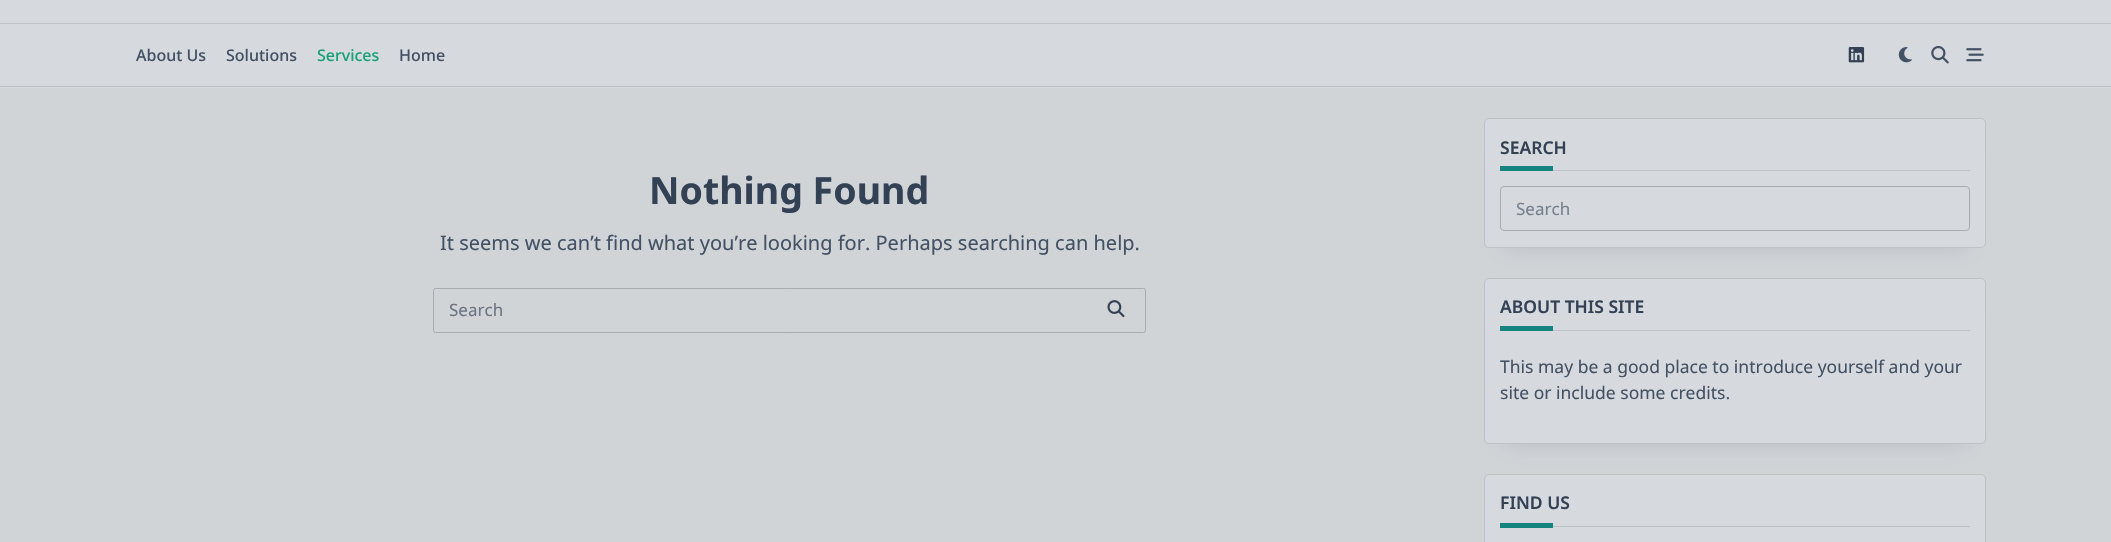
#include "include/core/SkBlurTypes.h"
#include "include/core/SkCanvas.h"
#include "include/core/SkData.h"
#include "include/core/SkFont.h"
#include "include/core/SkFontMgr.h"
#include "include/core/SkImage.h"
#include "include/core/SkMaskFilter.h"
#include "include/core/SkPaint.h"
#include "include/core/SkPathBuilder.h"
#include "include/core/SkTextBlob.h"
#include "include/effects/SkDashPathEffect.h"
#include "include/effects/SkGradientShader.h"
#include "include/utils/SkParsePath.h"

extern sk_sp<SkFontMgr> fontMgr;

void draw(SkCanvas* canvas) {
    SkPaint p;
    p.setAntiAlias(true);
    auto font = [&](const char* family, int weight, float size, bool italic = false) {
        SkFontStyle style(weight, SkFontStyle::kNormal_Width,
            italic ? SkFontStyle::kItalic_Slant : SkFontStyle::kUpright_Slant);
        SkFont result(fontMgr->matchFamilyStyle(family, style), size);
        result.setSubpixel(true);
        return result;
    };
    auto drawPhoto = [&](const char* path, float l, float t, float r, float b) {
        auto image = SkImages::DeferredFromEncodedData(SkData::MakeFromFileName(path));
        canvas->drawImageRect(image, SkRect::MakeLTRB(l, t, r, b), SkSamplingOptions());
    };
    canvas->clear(0xFFD1D4D7);
    {
        const struct { float l, t, r, b; SkColor color; } items[] = {
            {0, 0, 2111, 23, 0xFFD6D9DD},
            {0, 23, 2111, 24, 0xFFBDC2C4},
            {0, 24, 2111, 88, 0xFFD6D9DD},
            {0, 86, 2111, 87, 0xFFBDC2C4},
        };
        for (auto [l, t, r, b, color] : items) {
            p.setColor(color);
            canvas->drawRect(SkRect::MakeLTRB(l, t, r, b), p);
        }
    }
    auto font1 = font("Noto Sans", 500, 16);
    p.setColor(0xFF435165);
    canvas->drawString("About Us", 136, 61, font1, p);
    canvas->drawString("Solutions", 226, 61, font1, p);
    p.setColor(0xFF17A178);
    canvas->drawString("Services", 317, 61, font1, p);
    p.setColor(0xFF435165);
    canvas->drawString("Home", 399, 61, font1, p);
    drawPhoto("media/1.png", 1848, 47, 1865, 63);
    drawPhoto("media/2.png", 1898, 47, 1912, 63);
    drawPhoto("media/3.png", 1931, 45, 1949, 64);
    drawPhoto("media/4.png", 1966, 48, 1984, 62);
    auto font2 = font("Noto Sans", 700, 37.5f);
    p.setColor(0xFF334155);
    canvas->drawString("Nothing Found", 649, 204, font2, p);
    auto font3 = font("Noto Sans", 400, 20);
    p.setColor(0xFF435165);
    canvas->drawString("It seems we can’t find what you’re looking for. Perhaps searching can help.", 440, 250, font3, p);
    p.setStyle(SkPaint::kStroke_Style);
    p.setStrokeWidth(1);
    p.setColor(0xFFA8ABAF);
    canvas->drawRoundRect(SkRect::MakeLTRB(433.5f, 288.5f, 1145.5f, 332.5f), 2, 2, p);
    auto font4 = font("Noto Sans", 400, 17);
    p.setStyle(SkPaint::kFill_Style);
    p.setColor(0xFF6A7483);
    canvas->drawString("Search", 449, 316, font4, p);
    drawPhoto("media/5.png", 1107, 300, 1125, 318);
    p.setColor(0x262D3F51);
    p.setMaskFilter(SkMaskFilter::MakeBlur(kNormal_SkBlurStyle, 11));
    canvas->drawRect(SkRect::MakeLTRB(1503, 155, 1968, 248), p);
    p.setMaskFilter(nullptr);
    p.setColor(0xFFD6D9DD);
    canvas->drawRoundRect(SkRect::MakeLTRB(1484.5f, 118.5f, 1985.5f, 247.5f), 4.5f, 4.5f, p);
    p.setStyle(SkPaint::kStroke_Style);
    p.setColor(0xFFBDC2C4);
    canvas->drawRoundRect(SkRect::MakeLTRB(1484.5f, 118.5f, 1985.5f, 247.5f), 4.5f, 4.5f, p);
    p.setStyle(SkPaint::kFill_Style);
    canvas->drawRect(SkRect::MakeLTRB(1553, 170, 1970, 171), p);
    auto font5 = font("Noto Sans", 600, 17.5f);
    p.setColor(0xFF334155);
    canvas->drawString("SEARCH", 1500, 154, font5, p);
    p.setColor(0xFF15837E);
    canvas->drawRect(SkRect::MakeLTRB(1500, 166, 1553, 171), p);
    p.setStyle(SkPaint::kStroke_Style);
    p.setColor(0xFFA8ABAF);
    canvas->drawRoundRect(SkRect::MakeLTRB(1500.5f, 186.5f, 1969.5f, 230.5f), 3.5f, 3.5f, p);
    p.setStyle(SkPaint::kFill_Style);
    p.setColor(0xFF76818F);
    canvas->drawString("Search", 1516, 215, font4, p);
    p.setColor(0x262D3F51);
    p.setMaskFilter(SkMaskFilter::MakeBlur(kNormal_SkBlurStyle, 11));
    canvas->drawRect(SkRect::MakeLTRB(1503, 315, 1968, 444), p);
    p.setMaskFilter(nullptr);
    p.setColor(0xFFD6D9DD);
    canvas->drawRoundRect(SkRect::MakeLTRB(1484.5f, 278.5f, 1985.5f, 443.5f), 4.5f, 4.5f, p);
    p.setStyle(SkPaint::kStroke_Style);
    p.setColor(0xFFBDC2C4);
    canvas->drawRoundRect(SkRect::MakeLTRB(1484.5f, 278.5f, 1985.5f, 443.5f), 4.5f, 4.5f, p);
    p.setStyle(SkPaint::kFill_Style);
    canvas->drawRect(SkRect::MakeLTRB(1553, 330, 1970, 331), p);
    p.setColor(0xFF334155);
    canvas->drawString("ABOUT THIS SITE", 1500, 313, font5, p);
    p.setColor(0xFF15837E);
    canvas->drawRect(SkRect::MakeLTRB(1500, 326, 1553, 331), p);
    auto font6 = font("Noto Sans", 400, 17.5f);
    p.setColor(0xFF435165);
    canvas->drawString("This may be a good place to introduce yourself and your", 1500, 373, font6, p);
    canvas->drawString("site or include some credits.", 1500, 399, font6, p);
    p.setColor(0xFFD6D9DD);
    canvas->drawRoundRect(SkRect::MakeLTRB(1484.5f, 474.5f, 1985.5f, 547.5f), 4.5f, 4.5f, p);
    p.setStyle(SkPaint::kStroke_Style);
    p.setColor(0xFFBDC2C4);
    canvas->drawRoundRect(SkRect::MakeLTRB(1484.5f, 474.5f, 1985.5f, 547.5f), 4.5f, 4.5f, p);
    p.setStyle(SkPaint::kFill_Style);
    canvas->drawRect(SkRect::MakeLTRB(1553, 526, 1970, 527), p);
    p.setColor(0xFF334155);
    canvas->drawString("FIND US", 1500, 509, font5, p);
    p.setColor(0xFF15837E);
    canvas->drawRect(SkRect::MakeLTRB(1500, 523, 1553, 528), p);
}
